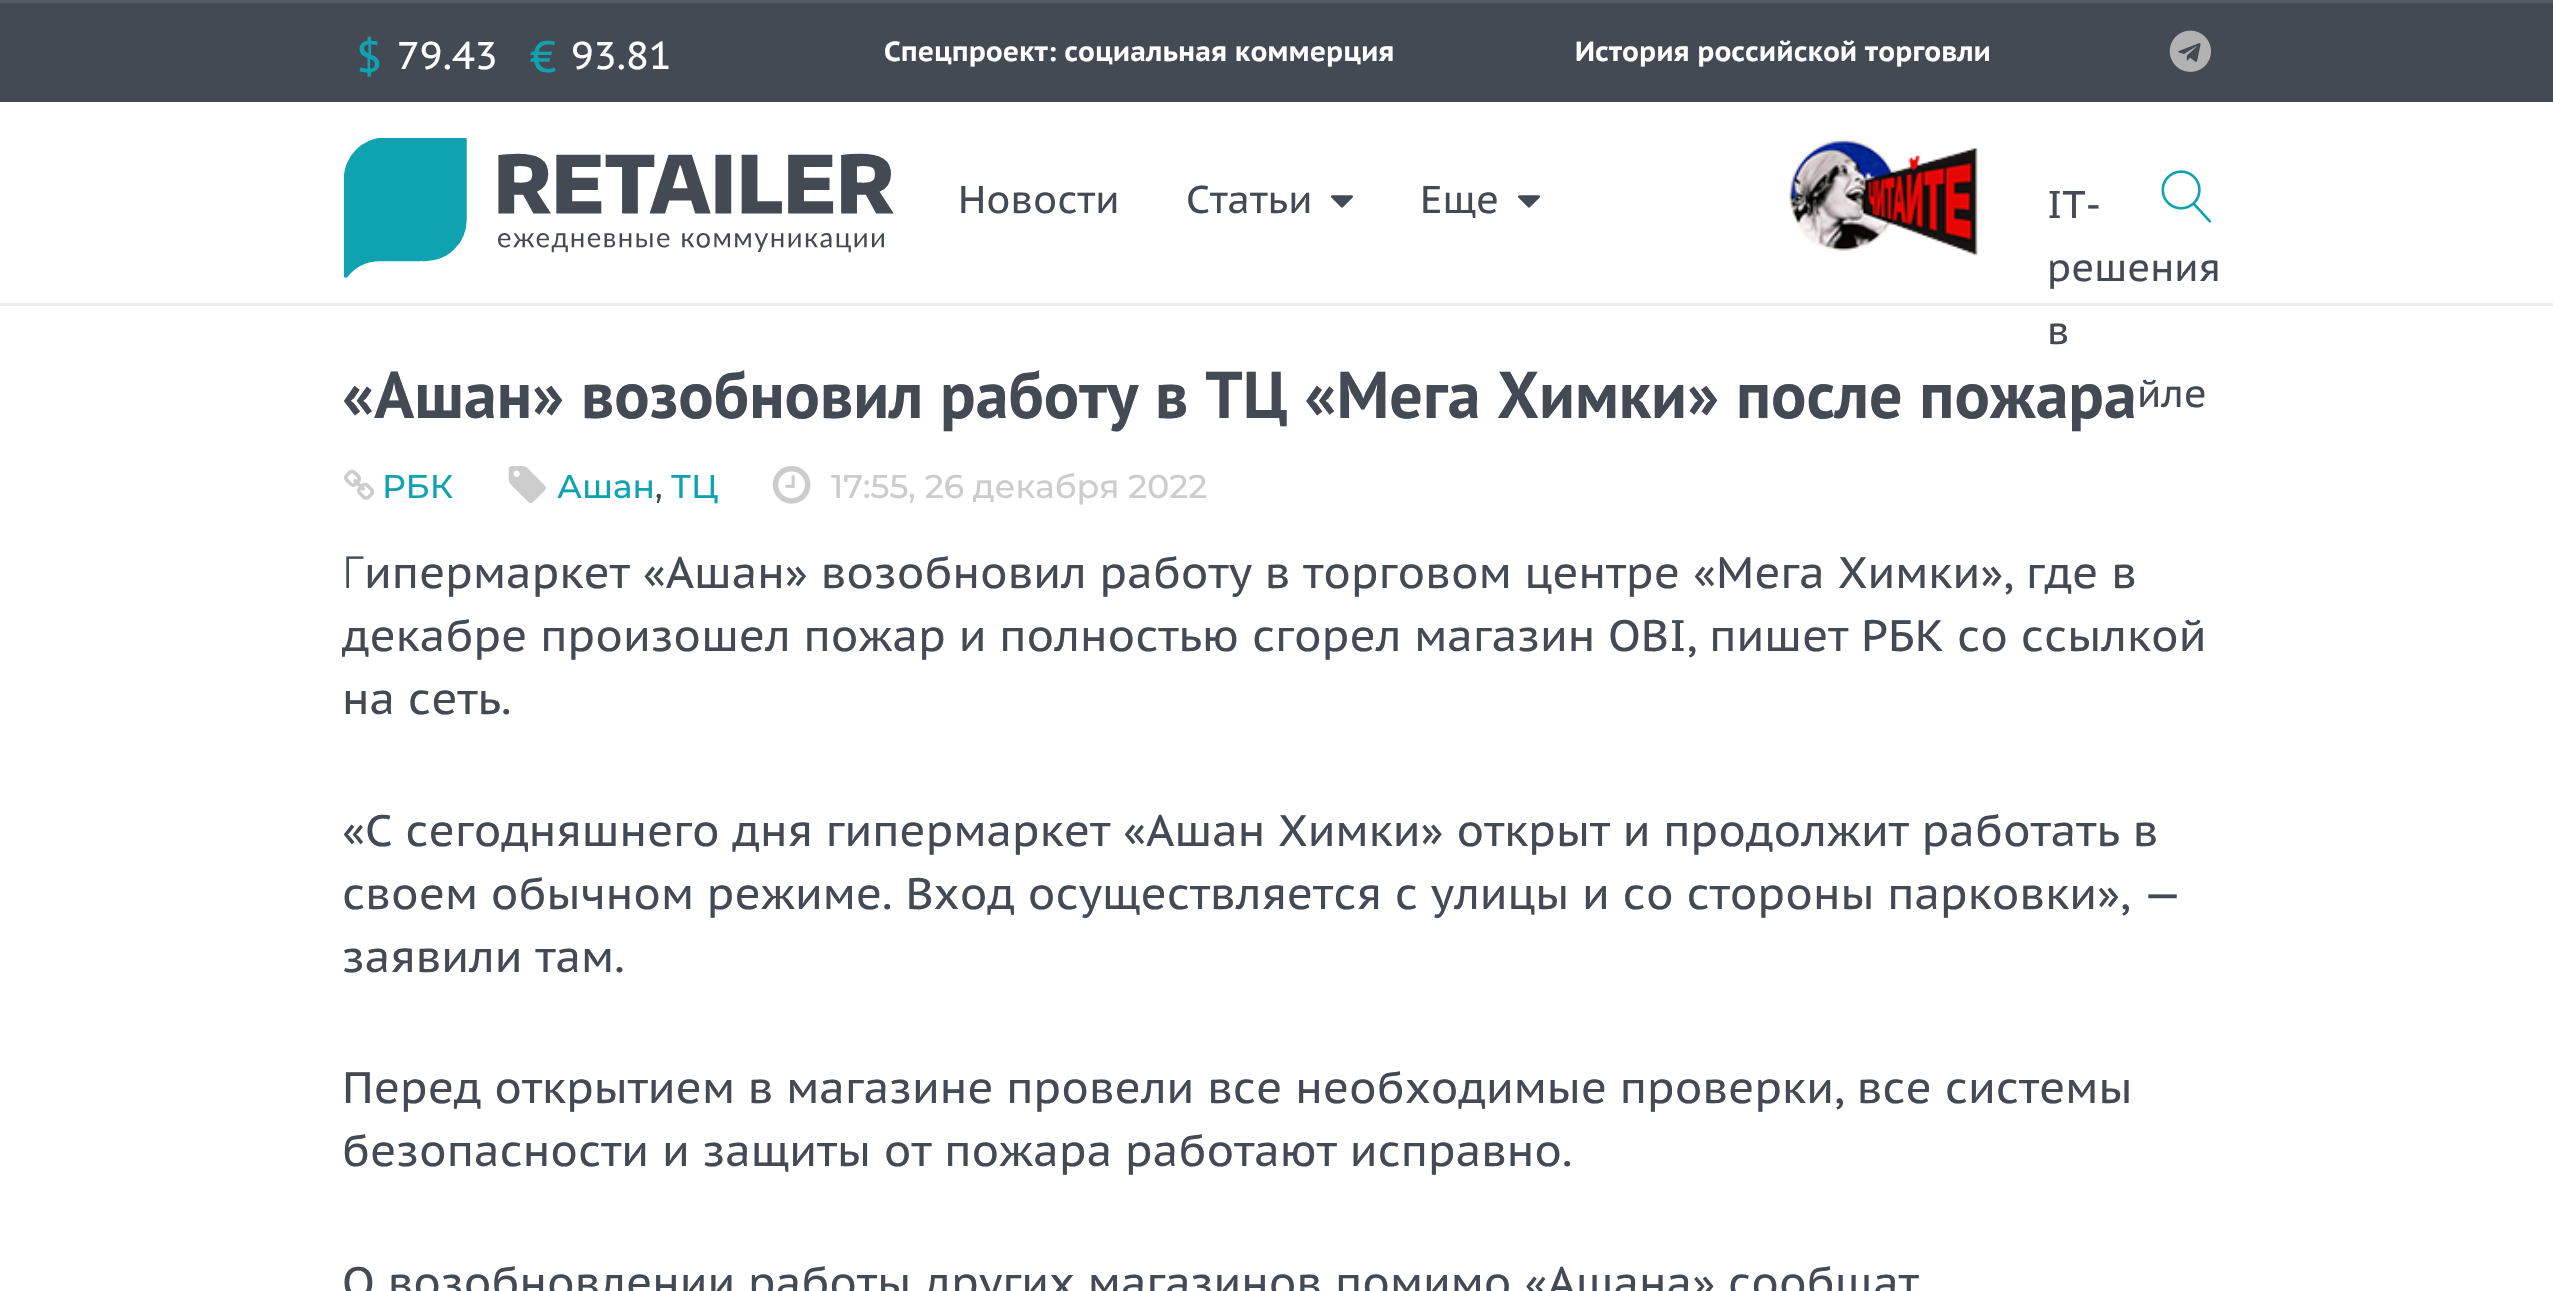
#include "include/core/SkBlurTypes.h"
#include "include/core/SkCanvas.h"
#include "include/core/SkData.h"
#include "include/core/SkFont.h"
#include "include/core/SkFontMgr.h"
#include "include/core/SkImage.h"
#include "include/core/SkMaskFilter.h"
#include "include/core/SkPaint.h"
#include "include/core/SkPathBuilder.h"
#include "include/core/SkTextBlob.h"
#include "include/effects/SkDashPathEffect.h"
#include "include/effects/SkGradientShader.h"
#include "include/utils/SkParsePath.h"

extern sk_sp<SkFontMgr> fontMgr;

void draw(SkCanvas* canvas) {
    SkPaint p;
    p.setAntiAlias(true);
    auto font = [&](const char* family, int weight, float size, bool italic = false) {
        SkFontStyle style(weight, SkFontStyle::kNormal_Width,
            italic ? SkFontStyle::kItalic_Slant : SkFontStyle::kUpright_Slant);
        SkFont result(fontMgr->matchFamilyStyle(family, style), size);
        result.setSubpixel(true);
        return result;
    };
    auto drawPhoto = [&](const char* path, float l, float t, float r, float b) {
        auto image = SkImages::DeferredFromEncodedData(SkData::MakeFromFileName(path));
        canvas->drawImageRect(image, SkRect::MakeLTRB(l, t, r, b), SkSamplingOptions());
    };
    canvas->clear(0xFFFFFFFF);
    p.setColor(0xFF434A54);
    canvas->drawRect(SkRect::MakeLTRB(0, 3, 2553, 102), p);
    p.setColor(0xFF545C66);
    canvas->drawRect(SkRect::MakeLTRB(0, 0, 2553, 3), p);
    auto font1 = font("PT Sans Caption", 400, 44);
    p.setColor(0xFF0FA3B1);
    canvas->drawString("$", 356, 72, font1, p);
    auto font2 = font("PT Sans Caption", 400, 38.5f);
    p.setColor(0xFFFFFFFF);
    canvas->drawString("79.43", 397, 69, font2, p);
    p.setColor(0xFF0FA3B1);
    canvas->drawString("€", 530, 72, font1, p);
    p.setColor(0xFFFFFFFF);
    canvas->drawString("93.81", 571, 69, font2, p);
    auto font3 = font("PT Sans Caption", 700, 27.5f);
    canvas->drawString("Спецпроект: социальная коммерция", 884, 61, font3, p);
    canvas->drawString("История российской торговли", 1575, 61, font3, p);
    drawPhoto("media/1.png", 2169, 30, 2211, 72);
    drawPhoto("media/2.png", 344, 138, 894, 278);
    p.setColor(0xFF434A54);
    canvas->drawString("Новости", 958, 213, font2, p);
    canvas->drawString("Статьи", 1186, 213, font2, p);
    drawPhoto("media/3.png", 1331, 195, 1353, 208);
    canvas->drawString("Еще", 1420, 213, font2, p);
    drawPhoto("media/3.png", 1518, 195, 1540, 208);
    drawPhoto("media/4.png", 1788, 137, 1978, 256);
    drawPhoto("media/5.png", 2161, 170, 2212, 223);
    {
        const struct { const char* s; float x, y; } items[] = {
            {"IT-", 2047, 218},
            {"решения", 2047, 281},
            {"в", 2047, 344},
            {"йле", 2137, 407},
        };
        for (auto [s, x, y] : items) {
            canvas->drawString(s, x, y, font2, p);
        }
    }
    p.setColor(0xFFECECEE);
    canvas->drawRect(SkRect::MakeLTRB(0, 303, 2553, 306), p);
    auto font4 = font("PT Sans", 700, 66);
    p.setColor(0xFF434A54);
    canvas->drawString("«Ашан» возобновил работу в ТЦ «Мега Химки» после пожара", 342, 418, font4, p);
    drawPhoto("media/6.png", 344, 469, 374, 500);
    auto font5 = font("Montserrat", 100, 33);
    p.setColor(0xFF0FA3B1);
    canvas->drawString("РБК", 382, 498, font5, p);
    drawPhoto("media/7.png", 508, 466, 546, 503);
    canvas->drawString("Ашан", 557, 498, font5, p);
    p.setColor(0xFF434A54);
    canvas->drawString(",", 655, 498, font5, p);
    p.setColor(0xFF0FA3B1);
    canvas->drawString("ТЦ", 671, 498, font5, p);
    drawPhoto("media/8.png", 772, 466, 811, 504);
    p.setColor(0xFFCCCCCC);
    canvas->drawString("17:55, 26 декабря 2022", 831, 498, font5, p);
    auto font6 = font("Noto Sans", 300, 44);
    p.setColor(0xFF434A54);
    canvas->drawString("Г", 342, 588, font6, p);
    {
        const struct { const char* s; float x, y; } items[] = {
            {"ипермаркет «Ашан» возобновил работу в торговом центре «Мега Химки», где в", 364, 588},
            {"декабре произошел пожар и полностью сгорел магазин OBI, пишет РБК со ссылкой", 342, 651},
            {"на сеть.", 342, 714},
            {"«С сегодняшнего дня гипермаркет «Ашан Химки» открыт и продолжит работать в", 342, 846},
            {"своем обычном режиме. Вход осуществляется с улицы и со стороны парковки», —", 342, 909},
            {"заявили там.", 342, 972},
            {"Перед открытием в магазине провели все необходимые проверки, все системы", 342, 1103},
            {"безопасности и защиты от пожара работают исправно.", 342, 1166},
            {"О возобновлении работы других магазинов помимо «Ашана» сообщат", 342, 1298},
        };
        for (auto [s, x, y] : items) {
            canvas->drawString(s, x, y, font1, p);
        }
    }
}
